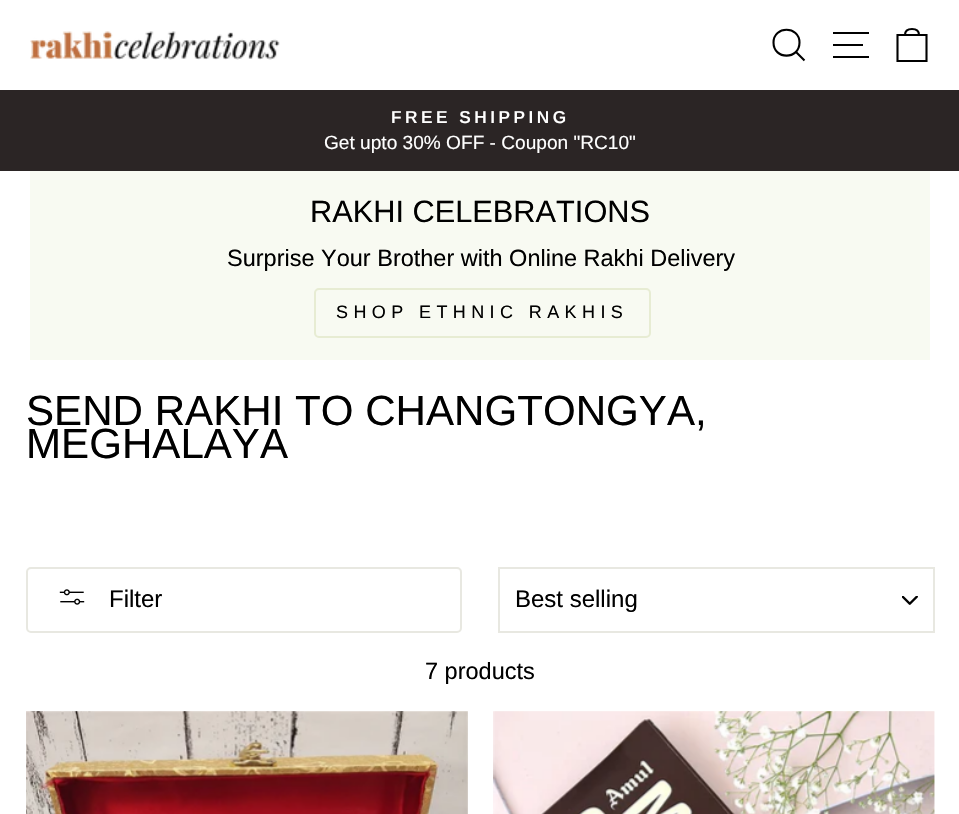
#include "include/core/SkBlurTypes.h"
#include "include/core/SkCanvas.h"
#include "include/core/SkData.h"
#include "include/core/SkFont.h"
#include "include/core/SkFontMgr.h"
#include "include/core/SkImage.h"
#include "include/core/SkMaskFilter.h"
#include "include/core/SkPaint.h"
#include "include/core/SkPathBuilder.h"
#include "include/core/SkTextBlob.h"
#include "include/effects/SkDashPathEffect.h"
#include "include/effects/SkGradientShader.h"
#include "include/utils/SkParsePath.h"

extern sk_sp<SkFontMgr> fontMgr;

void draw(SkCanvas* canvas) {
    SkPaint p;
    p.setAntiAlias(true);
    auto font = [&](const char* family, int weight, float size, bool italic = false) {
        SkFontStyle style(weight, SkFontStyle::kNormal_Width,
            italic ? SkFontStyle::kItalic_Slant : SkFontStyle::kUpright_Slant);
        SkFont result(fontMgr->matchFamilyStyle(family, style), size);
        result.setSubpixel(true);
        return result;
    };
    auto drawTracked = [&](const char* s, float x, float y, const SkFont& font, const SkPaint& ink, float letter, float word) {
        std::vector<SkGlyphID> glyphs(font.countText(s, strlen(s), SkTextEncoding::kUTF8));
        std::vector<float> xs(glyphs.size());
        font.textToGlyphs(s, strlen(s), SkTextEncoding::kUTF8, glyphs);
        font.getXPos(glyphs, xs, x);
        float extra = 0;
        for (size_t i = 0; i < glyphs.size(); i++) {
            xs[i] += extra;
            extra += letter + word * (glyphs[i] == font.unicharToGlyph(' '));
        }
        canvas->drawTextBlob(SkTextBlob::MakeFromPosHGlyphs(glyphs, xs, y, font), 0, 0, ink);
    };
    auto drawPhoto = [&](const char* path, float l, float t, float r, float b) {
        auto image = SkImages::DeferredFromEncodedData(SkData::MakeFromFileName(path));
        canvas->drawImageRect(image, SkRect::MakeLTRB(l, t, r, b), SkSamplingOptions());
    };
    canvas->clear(0xFFFFFFFF);
    drawPhoto("media/1.png", 30, 31, 280, 60);
    p.setStyle(SkPaint::kStroke_Style);
    p.setStrokeWidth(2.1f);
    p.setColor(0xFF000000);
    canvas->drawPath(SkPathBuilder().moveTo(799.5f, 42.5f).cubicTo(799.5f, 60, 773.5f, 60, 773.5f, 42.5f).cubicTo(773.5f, 25.5f, 799.5f, 25.5f, 799.5f, 42.5f).close().moveTo(804.5f, 60.5f).lineTo(796, 52).detach(), p);
    canvas->drawPath(SkPathBuilder().moveTo(833, 33).lineTo(869, 33).moveTo(833, 45).lineTo(863, 45).moveTo(833, 57).lineTo(869, 57).detach(), p);
    canvas->drawPath(SkPathBuilder().moveTo(897.5f, 35).lineTo(926.5f, 35).lineTo(926.5f, 61).lineTo(897.5f, 61).close().moveTo(905, 35).cubicTo(905, 30, 908, 29, 912, 29).cubicTo(916, 29, 919, 30, 919, 35).detach(), p);
    p.setStyle(SkPaint::kFill_Style);
    p.setColor(0xFF2B2525);
    canvas->drawRect(SkRect::MakeLTRB(0, 90, 959, 171), p);
    auto font1 = font("Arimo", 600, 17.25f);
    p.setColor(0xFFFFFFFF);
    drawTracked("FREE SHIPPING", 391, 123, font1, p, 3.5f, 0);
    auto font2 = font("Arimo", 400, 19.1f);
    canvas->drawString("Get upto 30% OFF - Coupon \"RC10\"", 324, 149, font2, p);
    p.setColor(0xFFF8FAF2);
    canvas->drawRect(SkRect::MakeLTRB(30, 171, 930, 360), p);
    auto font3 = font("Arimo", 400, 30.75f);
    p.setColor(0xFF000000);
    canvas->drawString("RAKHI CELEBRATIONS", 310, 222, font3, p);
    auto font4 = font("Arimo", 400, 23.5f);
    canvas->drawString("Surprise Your Brother with Online Rakhi Delivery", 227, 266, font4, p);
    p.setStyle(SkPaint::kStroke_Style);
    p.setStrokeWidth(2);
    p.setColor(0xFFE7ECD3);
    canvas->drawRoundRect(SkRect::MakeLTRB(315, 289, 650, 337), 4, 4, p);
    auto font5 = font("Arimo", 400, 18);
    p.setStyle(SkPaint::kFill_Style);
    p.setColor(0xFF000000);
    drawTracked("SHOP ETHNIC RAKHIS", 336, 318, font5, p, 5.4f, 0);
    auto font6 = font("Arimo", 400, 42.1f);
    canvas->drawString("SEND RAKHI TO CHANGTONGYA,", 26, 425, font6, p);
    canvas->drawString("MEGHALAYA", 26, 458, font6, p);
    p.setStyle(SkPaint::kStroke_Style);
    p.setColor(0xFFE8E8E1);
    canvas->drawRoundRect(SkRect::MakeLTRB(27, 568, 461, 632), 4, 4, p);
    drawPhoto("media/2.png", 59, 589, 85, 605);
    auto font7 = font("Arimo", 400, 24);
    p.setStyle(SkPaint::kFill_Style);
    p.setColor(0xFF000000);
    canvas->drawString("Filter", 109, 607, font7, p);
    drawPhoto("media/3.png", 902, 596, 918, 605);
    p.setStyle(SkPaint::kStroke_Style);
    p.setColor(0xFFE8E8E1);
    canvas->drawRect(SkRect::MakeLTRB(499, 568, 934, 632), p);
    p.setStyle(SkPaint::kFill_Style);
    p.setColor(0xFF000000);
    canvas->drawString("Best selling", 515, 607, font7, p);
    canvas->drawString("7 products", 425, 679, font4, p);
    drawPhoto("media/4.png", 26, 711, 468, 814);
    drawPhoto("media/5.png", 493, 711, 935, 814);
}
